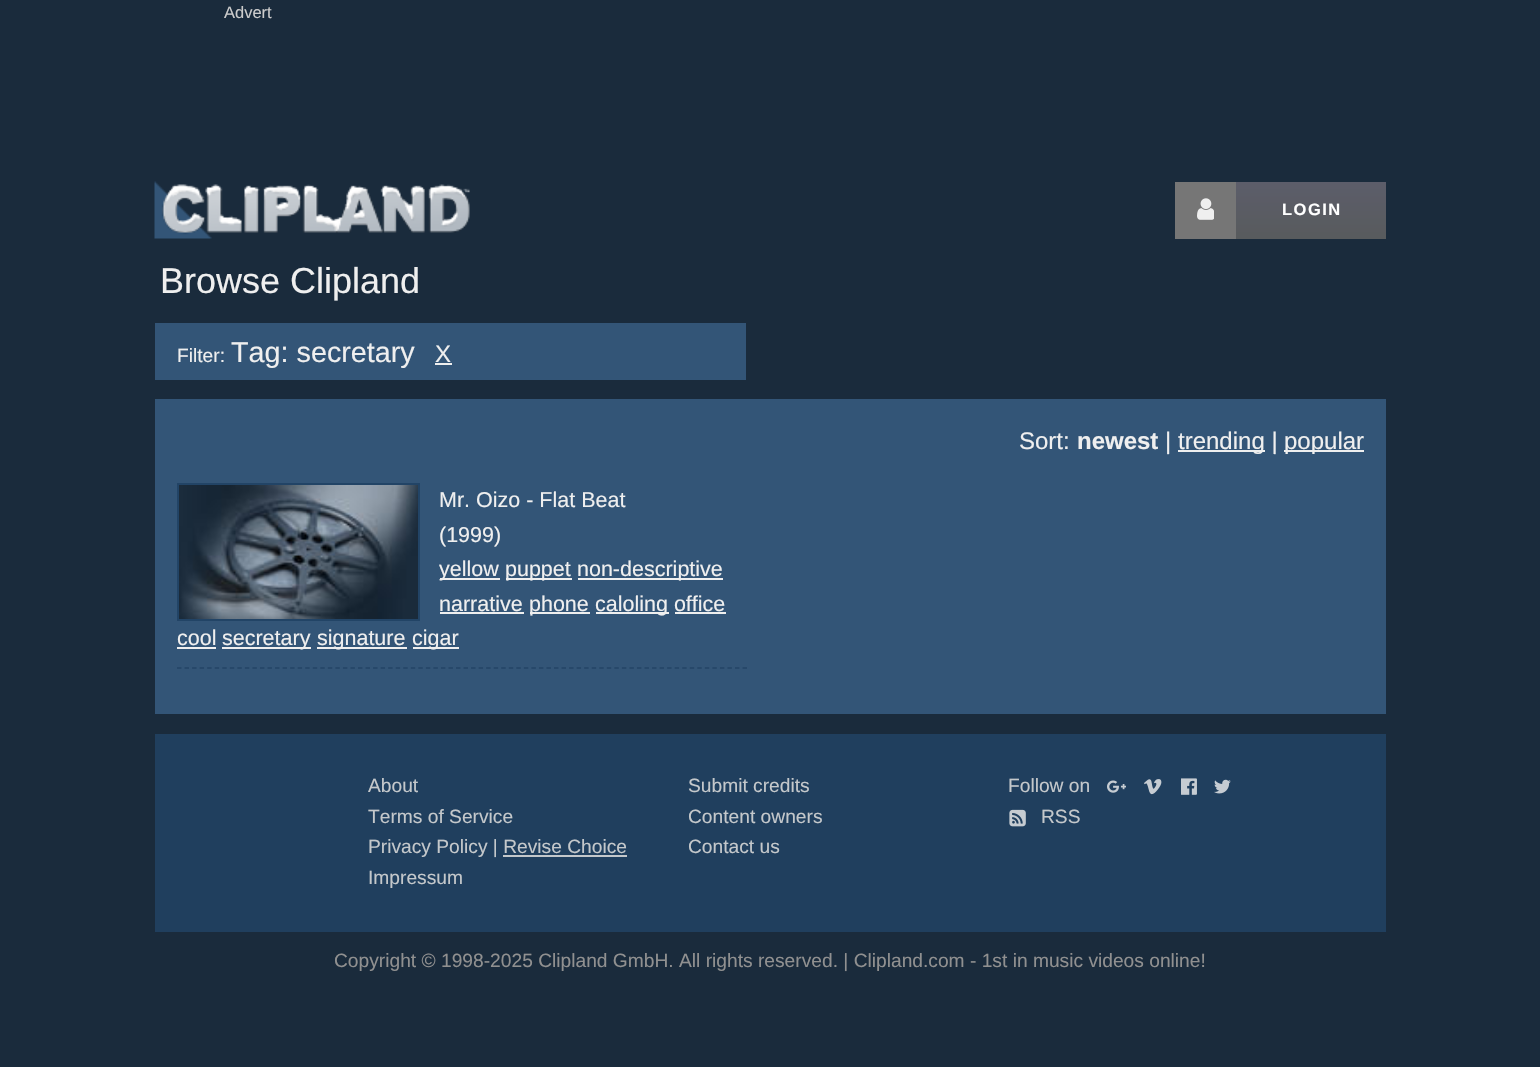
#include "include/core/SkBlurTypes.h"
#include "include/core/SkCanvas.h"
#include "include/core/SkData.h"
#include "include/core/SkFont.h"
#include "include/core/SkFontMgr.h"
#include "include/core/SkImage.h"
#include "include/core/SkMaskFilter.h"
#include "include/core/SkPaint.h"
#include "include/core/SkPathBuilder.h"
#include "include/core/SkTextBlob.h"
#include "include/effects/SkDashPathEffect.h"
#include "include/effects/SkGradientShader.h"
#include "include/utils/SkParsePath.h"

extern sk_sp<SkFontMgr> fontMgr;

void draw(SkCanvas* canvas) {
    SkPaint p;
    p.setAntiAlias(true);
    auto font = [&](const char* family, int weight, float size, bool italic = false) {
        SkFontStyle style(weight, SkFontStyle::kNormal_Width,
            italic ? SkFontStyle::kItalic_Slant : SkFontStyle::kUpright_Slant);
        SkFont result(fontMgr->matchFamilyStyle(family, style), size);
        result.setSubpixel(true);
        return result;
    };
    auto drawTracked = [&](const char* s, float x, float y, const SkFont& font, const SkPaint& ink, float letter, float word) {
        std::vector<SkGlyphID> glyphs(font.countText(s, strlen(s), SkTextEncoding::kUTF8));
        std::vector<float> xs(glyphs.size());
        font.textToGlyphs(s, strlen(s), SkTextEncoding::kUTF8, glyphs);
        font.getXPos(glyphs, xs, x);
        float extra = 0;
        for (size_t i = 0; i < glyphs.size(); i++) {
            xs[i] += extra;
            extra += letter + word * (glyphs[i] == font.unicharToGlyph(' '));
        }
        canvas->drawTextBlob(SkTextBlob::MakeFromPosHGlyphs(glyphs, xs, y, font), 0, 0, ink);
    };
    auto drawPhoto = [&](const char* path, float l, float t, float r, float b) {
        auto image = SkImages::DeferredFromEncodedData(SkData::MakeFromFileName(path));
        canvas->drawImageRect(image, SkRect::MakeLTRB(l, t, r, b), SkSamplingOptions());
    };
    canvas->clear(0xFF1A2B3C);
    auto font1 = font("Liberation Sans", 400, 16.5f);
    p.setColor(0xFFCCCCCC);
    canvas->drawString("Advert", 224, 18, font1, p);
    drawPhoto("media/1.png", 154, 181, 470, 239);
    p.setColor(0xFF767676);
    canvas->drawRect(SkRect::MakeLTRB(1175, 182, 1236, 239), p);
    drawPhoto("media/2.png", 1197, 198, 1214, 220);
    {
        const SkColor colors[] = {0xFF5C5D6A, 0xFF585B5D};
        const float stops[] = {0, 1};
        const SkPoint ends[] = {{1311, 182}, {1311, 239}};
        p.setShader(SkGradientShader::MakeLinear(ends, colors, stops, 2, SkTileMode::kClamp));
        p.setAlpha(255);
    }
    canvas->drawRect(SkRect::MakeLTRB(1236, 182, 1386, 239), p);
    auto font2 = font("Liberation Sans", 700, 16.5f);
    p.setShader(nullptr);
    p.setColor(0xFFFFFFFF);
    drawTracked("LOGIN", 1282, 215, font2, p, 1.5f, 0);
    auto font3 = font("Liberation Sans", 400, 36);
    p.setColor(0xFFEFEFEF);
    canvas->drawString("Browse Clipland", 160, 293, font3, p);
    p.setColor(0xFF335577);
    canvas->drawRect(SkRect::MakeLTRB(155, 323, 746, 380), p);
    auto font4 = font("Liberation Sans", 400, 19.2f);
    p.setColor(0xFFEFEFEF);
    canvas->drawString("Filter:", 177, 362, font4, p);
    auto font5 = font("Liberation Sans", 400, 28.75f);
    canvas->drawString("Tag: secretary", 231, 362, font5, p);
    auto font6 = font("Liberation Sans", 400, 24);
    canvas->drawString("X", 435, 362, font6, p);
    canvas->drawRect(SkRect::MakeLTRB(435, 363, 452, 365), p);
    p.setColor(0xFF335577);
    canvas->drawRect(SkRect::MakeLTRB(155, 399, 1386, 714), p);
    p.setColor(0xFFEFEFEF);
    canvas->drawString("Sort:", 1019, 449, font6, p);
    auto font7 = font("Liberation Sans", 700, 24);
    canvas->drawString("newest", 1077, 449, font7, p);
    canvas->drawString("|", 1165, 449, font6, p);
    canvas->drawRect(SkRect::MakeLTRB(1178, 450, 1265, 452), p);
    canvas->drawString("trending |", 1178, 449, font6, p);
    canvas->drawRect(SkRect::MakeLTRB(1284, 450, 1364, 452), p);
    canvas->drawString("popular", 1284, 449, font6, p);
    p.setStyle(SkPaint::kStroke_Style);
    p.setStrokeWidth(1.5f);
    p.setColor(0xFF224466);
    p.setPathEffect(SkDashPathEffect::Make({{4.5f, 3.04f}}, 0));
    canvas->drawPath(SkPathBuilder().moveTo(177, 668).lineTo(747, 668).detach(), p);
    p.setPathEffect(nullptr);
    drawPhoto("media/3.png", 179, 485, 418, 619);
    p.setStrokeWidth(2);
    canvas->drawRect(SkRect::MakeLTRB(178, 484, 419, 620), p);
    auto font8 = font("Liberation Sans", 400, 21.5f);
    p.setStyle(SkPaint::kFill_Style);
    p.setColor(0xFFEFEFEF);
    canvas->drawString("Mr. Oizo - Flat Beat", 439, 507, font8, p);
    canvas->drawString("(1999)", 439, 542, font8, p);
    canvas->drawRect(SkRect::MakeLTRB(440, 578, 500, 580), p);
    canvas->drawString("yellow", 439, 576, font8, p);
    canvas->drawRect(SkRect::MakeLTRB(506, 578, 572, 580), p);
    canvas->drawString("puppet", 505, 576, font8, p);
    canvas->drawRect(SkRect::MakeLTRB(578, 578, 723, 580), p);
    canvas->drawString("non-descriptive", 577, 576, font8, p);
    canvas->drawString("narrative", 439, 611, font8, p);
    canvas->drawRect(SkRect::MakeLTRB(440, 612, 524, 614), p);
    canvas->drawRect(SkRect::MakeLTRB(530, 612, 590, 614), p);
    canvas->drawString("phone", 529, 611, font8, p);
    canvas->drawRect(SkRect::MakeLTRB(596, 612, 669, 614), p);
    canvas->drawString("caloling office", 595, 611, font8, p);
    canvas->drawRect(SkRect::MakeLTRB(675, 612, 726, 614), p);
    canvas->drawString("cool", 177, 645, font8, p);
    canvas->drawRect(SkRect::MakeLTRB(177, 647, 216, 649), p);
    canvas->drawRect(SkRect::MakeLTRB(222, 647, 311, 649), p);
    canvas->drawString("secretary", 222, 645, font8, p);
    canvas->drawRect(SkRect::MakeLTRB(317, 647, 407, 649), p);
    canvas->drawString("signature", 317, 645, font8, p);
    canvas->drawRect(SkRect::MakeLTRB(413, 647, 459, 649), p);
    canvas->drawString("cigar", 412, 645, font8, p);
    p.setColor(0xFF203F5E);
    canvas->drawRect(SkRect::MakeLTRB(155, 734, 1386, 932), p);
    p.setColor(0xFFC4C8CB);
    {
        const struct { const char* s; float x, y; } items[] = {
            {"About", 368, 792},
            {"Terms of Service", 368, 823},
            {"Privacy Policy | Revise Choice", 368, 853},
        };
        for (auto [s, x, y] : items) {
            canvas->drawString(s, x, y, font4, p);
        }
    }
    canvas->drawRect(SkRect::MakeLTRB(503, 855, 627, 857), p);
    {
        const struct { const char* s; float x, y; } items[] = {
            {"Impressum", 368, 884},
            {"Submit credits", 688, 792},
            {"Content owners", 688, 823},
            {"Contact us", 688, 853},
            {"Follow on", 1008, 792},
        };
        for (auto [s, x, y] : items) {
            canvas->drawString(s, x, y, font4, p);
        }
    }
    drawPhoto("media/4.png", 1107, 780, 1126, 793);
    drawPhoto("media/5.png", 1144, 779, 1162, 795);
    drawPhoto("media/6.png", 1181, 778, 1197, 795);
    drawPhoto("media/7.png", 1214, 779, 1231, 794);
    drawPhoto("media/8.png", 1009, 809, 1026, 827);
    canvas->drawString("RSS", 1041, 823, font4, p);
    p.setColor(0xFF909090);
    canvas->drawString("Copyright © 1998-2025 Clipland GmbH. All rights reserved. | Clipland.com - 1st in music videos online!", 334, 967, font4, p);
}
